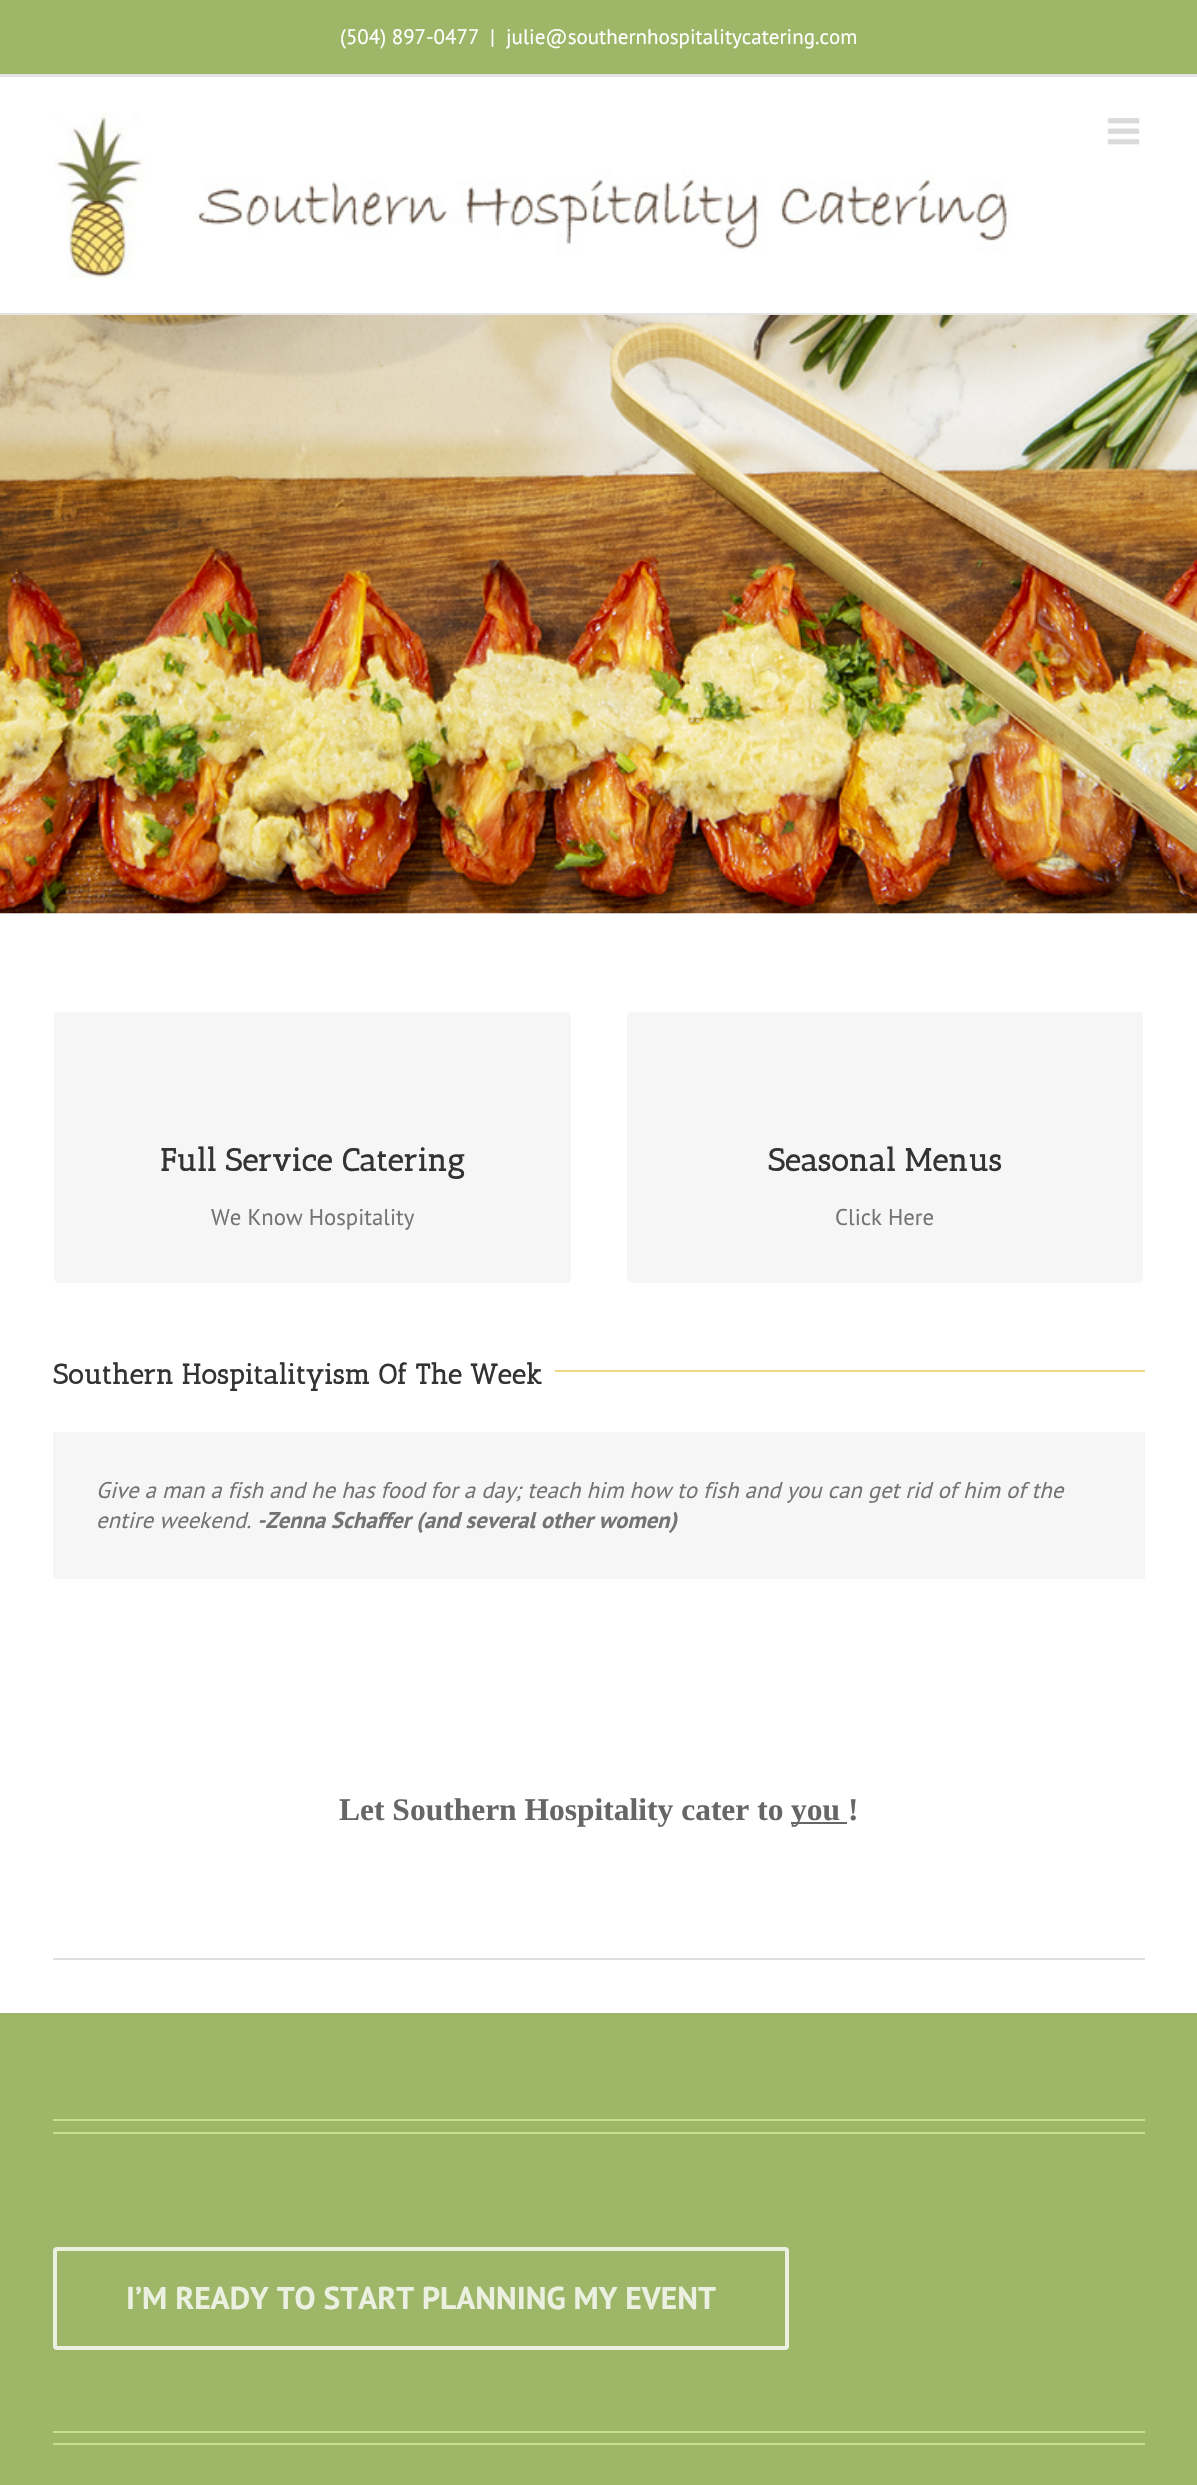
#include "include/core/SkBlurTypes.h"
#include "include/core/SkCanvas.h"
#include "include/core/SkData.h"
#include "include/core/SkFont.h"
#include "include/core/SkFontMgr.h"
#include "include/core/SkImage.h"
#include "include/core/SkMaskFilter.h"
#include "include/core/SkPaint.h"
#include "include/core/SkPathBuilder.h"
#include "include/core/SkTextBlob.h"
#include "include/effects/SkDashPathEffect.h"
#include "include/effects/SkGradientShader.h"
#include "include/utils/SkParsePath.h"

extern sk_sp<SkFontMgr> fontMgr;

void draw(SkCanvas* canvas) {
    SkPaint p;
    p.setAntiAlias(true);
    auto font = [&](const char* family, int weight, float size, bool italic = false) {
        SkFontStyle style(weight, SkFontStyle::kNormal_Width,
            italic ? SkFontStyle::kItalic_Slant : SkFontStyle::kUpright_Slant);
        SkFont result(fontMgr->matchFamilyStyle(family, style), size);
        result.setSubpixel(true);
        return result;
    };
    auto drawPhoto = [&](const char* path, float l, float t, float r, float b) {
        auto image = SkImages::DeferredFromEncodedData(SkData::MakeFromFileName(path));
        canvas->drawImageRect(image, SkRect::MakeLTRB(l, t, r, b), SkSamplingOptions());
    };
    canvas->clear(0xFFFFFFFF);
    p.setColor(0xFF9DB668);
    canvas->drawRect(SkRect::MakeLTRB(0, 0, 1197, 74), p);
    p.setColor(0xFFE5E5E5);
    canvas->drawRect(SkRect::MakeLTRB(0, 74, 1197, 77), p);
    auto font1 = font("PT Sans", 400, 21);
    p.setColor(0xFFFFFFFF);
    {
        const struct { const char* s; float x, y; } items[] = {
            {"(504) 897-0477", 340, 44},
            {"|", 490, 44},
            {"julie@southernhospitalitycatering.com", 506, 44},
        };
        for (auto [s, x, y] : items) {
            canvas->drawString(s, x, y, font1, p);
        }
    }
    p.setColor(0xFFE5E5E5);
    canvas->drawRect(SkRect::MakeLTRB(0, 313, 1197, 315), p);
    drawPhoto("media/1.png", 54, 112, 1013, 278);
    drawPhoto("media/2.png", 1107, 118, 1140, 145);
    drawPhoto("media/3.png", 0, 315, 1197, 914);
    p.setColor(0xFFF6F6F6);
    canvas->drawRoundRect(SkRect::MakeLTRB(54, 1012, 571, 1283), 5, 5, p);
    auto font2 = font("Antic Slab", 700, 31.5f);
    p.setColor(0xFF333333);
    canvas->drawString("Full Service Catering", 160, 1171, font2, p);
    auto font3 = font("PT Sans", 400, 22.75f);
    p.setColor(0xFF747474);
    canvas->drawString("We Know Hospitality", 211, 1225, font3, p);
    p.setColor(0xFFF6F6F6);
    canvas->drawRoundRect(SkRect::MakeLTRB(627, 1012, 1143, 1283), 5, 5, p);
    p.setColor(0xFF333333);
    canvas->drawString("Seasonal Menus", 768, 1171, font2, p);
    p.setColor(0xFF747474);
    canvas->drawString("Click Here", 835, 1225, font3, p);
    auto font4 = font("Antic Slab", 700, 28);
    p.setColor(0xFF333333);
    canvas->drawString("Southern Hospitalityism Of The Week", 53, 1384, font4, p);
    p.setColor(0xFFF2D585);
    canvas->drawRect(SkRect::MakeLTRB(555, 1370, 1145, 1372), p);
    p.setColor(0xFFF6F6F6);
    canvas->drawRect(SkRect::MakeLTRB(53, 1432, 1145, 1579), p);
    auto font5 = font("PT Sans", 400, 22.75f, true);
    p.setColor(0xFF747474);
    canvas->drawString("Give a man a fish and he has food for a day; teach him how to fish and you can get rid of him of the", 96, 1498, font5, p);
    canvas->drawString("entire weekend.", 96, 1528, font5, p);
    auto font6 = font("PT Sans", 700, 22.75f, true);
    canvas->drawString("-Zenna Schaffer (and several other women)", 257, 1528, font6, p);
    auto font7 = font("Liberation Serif", 700, 31.5f);
    p.setColor(0xFF666666);
    canvas->drawString("Let Southern Hospitality cater to", 339, 1820, font7, p);
    canvas->drawRect(SkRect::MakeLTRB(791, 1822, 847, 1824), p);
    canvas->drawString("you !", 791, 1820, font7, p);
    {
        const struct { float l, t, r, b; SkColor color; } items[] = {
            {53, 1958, 1145, 1960, 0xFFE0DEDE},
            {0, 2013, 1197, 2485, 0xFF9DB668},
            {53, 2119, 1145, 2121, 0xFFC3E28C},
            {53, 2132, 1145, 2134, 0xFFC3E28C},
        };
        for (auto [l, t, r, b, color] : items) {
            p.setColor(color);
            canvas->drawRect(SkRect::MakeLTRB(l, t, r, b), p);
        }
    }
    p.setStyle(SkPaint::kStroke_Style);
    p.setStrokeWidth(4);
    p.setColor(0xFFEBF0E1);
    canvas->drawRoundRect(SkRect::MakeLTRB(55, 2249, 787, 2348), 2, 2, p);
    auto font8 = font("PT Sans", 700, 31.5f);
    p.setStyle(SkPaint::kFill_Style);
    canvas->drawString("I’M READY TO START PLANNING MY EVENT", 126, 2309, font8, p);
    p.setColor(0xFFC3E28C);
    canvas->drawRect(SkRect::MakeLTRB(53, 2431, 1145, 2433), p);
    canvas->drawRect(SkRect::MakeLTRB(53, 2443, 1145, 2445), p);
}
